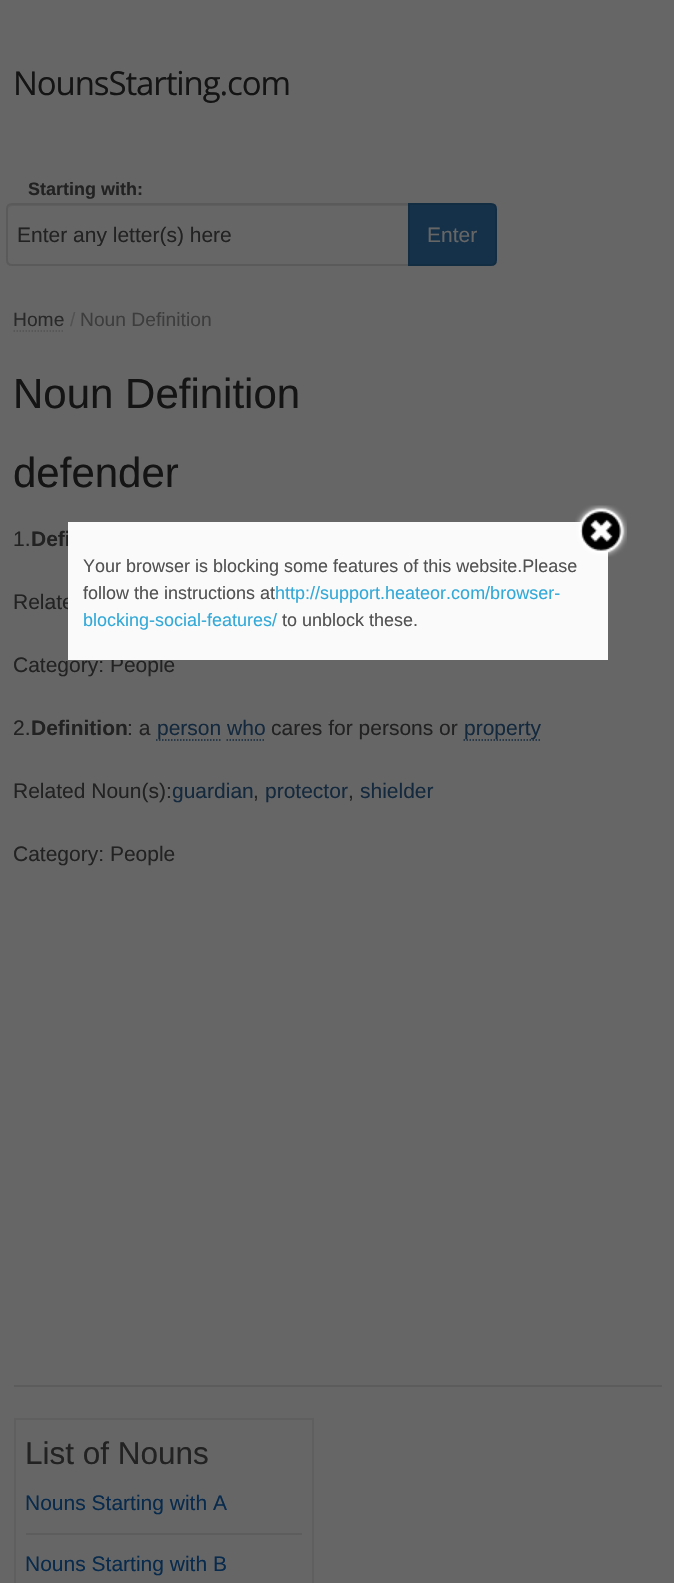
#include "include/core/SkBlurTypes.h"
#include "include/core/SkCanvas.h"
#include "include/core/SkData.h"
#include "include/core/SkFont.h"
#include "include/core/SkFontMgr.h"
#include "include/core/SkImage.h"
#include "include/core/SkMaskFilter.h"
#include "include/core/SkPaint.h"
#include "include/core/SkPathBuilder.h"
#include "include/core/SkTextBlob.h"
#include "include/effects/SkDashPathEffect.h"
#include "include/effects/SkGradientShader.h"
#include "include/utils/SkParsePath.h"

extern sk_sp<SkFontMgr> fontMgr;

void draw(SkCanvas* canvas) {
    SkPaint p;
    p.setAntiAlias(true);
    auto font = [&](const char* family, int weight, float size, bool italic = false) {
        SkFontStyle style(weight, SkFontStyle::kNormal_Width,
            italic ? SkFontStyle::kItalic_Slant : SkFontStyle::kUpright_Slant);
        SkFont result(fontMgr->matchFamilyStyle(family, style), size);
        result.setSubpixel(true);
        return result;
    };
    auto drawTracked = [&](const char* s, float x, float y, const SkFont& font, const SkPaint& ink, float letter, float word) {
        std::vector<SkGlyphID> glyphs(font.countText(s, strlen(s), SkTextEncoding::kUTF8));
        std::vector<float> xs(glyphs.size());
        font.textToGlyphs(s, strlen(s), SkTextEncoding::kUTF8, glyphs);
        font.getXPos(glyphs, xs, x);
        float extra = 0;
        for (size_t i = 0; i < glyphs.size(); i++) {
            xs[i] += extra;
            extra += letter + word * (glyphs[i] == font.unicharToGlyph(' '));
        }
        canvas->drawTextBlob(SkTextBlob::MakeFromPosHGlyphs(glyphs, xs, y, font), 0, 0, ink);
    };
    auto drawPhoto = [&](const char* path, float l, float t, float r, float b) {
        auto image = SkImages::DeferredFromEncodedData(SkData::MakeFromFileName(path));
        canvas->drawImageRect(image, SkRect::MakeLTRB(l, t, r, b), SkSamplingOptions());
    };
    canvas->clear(0xFF666666);
    auto font1 = font("Open Sans", 400, 33);
    p.setColor(0xFF141414);
    drawTracked("NounsStarting.com", 13, 95, font1, p, -1.1f, 0);
    auto font2 = font("Liberation Sans", 700, 18);
    p.setColor(0xFF222222);
    canvas->drawString("Starting with:", 28, 195, font2, p);
    p.setColor(0xFF5E5E5E);
    canvas->drawPath(SkPathBuilder().moveTo(12, 206).lineTo(408, 206).lineTo(408, 204).lineTo(13, 204).cubicTo(10, 204, 8, 207, 8, 210).cubicTo(8, 208, 10, 206, 12, 206).close().detach(), p);
    p.setStyle(SkPaint::kStroke_Style);
    p.setStrokeWidth(2);
    p.setColor(0xFF5A5A5A);
    canvas->drawPath(SkPathBuilder().moveTo(12, 204).lineTo(409, 204).lineTo(409, 265).lineTo(12, 265).cubicTo(9, 265, 7, 263, 7, 260).lineTo(7, 209).cubicTo(7, 206, 9, 204, 12, 204).close().detach(), p);
    canvas->save();
    canvas->clipRect(SkRect::MakeLTRB(18, 222, 398, 246));
    auto font3 = font("Liberation Sans", 400, 21);
    p.setStyle(SkPaint::kFill_Style);
    p.setColor(0xFF222222);
    canvas->drawString("Enter any letter(s) here", 17, 242, font3, p);
    canvas->restore();
    p.setColor(0xFF143149);
    canvas->drawPath(SkPathBuilder().moveTo(409, 204).lineTo(491, 204).cubicTo(494, 204, 496, 206, 496, 209).lineTo(496, 260).cubicTo(496, 263, 494, 265, 491, 265).lineTo(409, 265).close().detach(), p);
    p.setStyle(SkPaint::kStroke_Style);
    p.setColor(0xFF122C42);
    canvas->drawPath(SkPathBuilder().moveTo(409, 204).lineTo(491, 204).cubicTo(494, 204, 496, 206, 496, 209).lineTo(496, 260).cubicTo(496, 263, 494, 265, 491, 265).lineTo(409, 265).close().detach(), p);
    p.setStyle(SkPaint::kFill_Style);
    p.setColor(0xFF666666);
    canvas->drawString("Enter", 427, 242, font3, p);
    auto font4 = font("Liberation Sans", 400, 19.25f);
    p.setColor(0xFF292929);
    canvas->drawString("Home", 13, 326, font4, p);
    p.setStyle(SkPaint::kStroke_Style);
    p.setStrokeWidth(1.5f);
    p.setColor(0xFF525252);
    p.setPathEffect(SkDashPathEffect::Make({{1.5f, 1.5f}}, 0));
    canvas->drawPath(SkPathBuilder().moveTo(13.5f, 331).lineTo(64.5f, 331).detach(), p);
    p.setPathEffect(nullptr);
    p.setStyle(SkPaint::kFill_Style);
    canvas->drawString("/", 70, 326, font4, p);
    p.setColor(0xFF3D3D3D);
    canvas->drawString("Noun Definition", 80, 326, font4, p);
    p.setColor(0xFF5C5C5C);
    canvas->drawRect(SkRect::MakeLTRB(14, 1385, 662, 1387), p);
    auto font5 = font("Liberation Sans", 400, 42);
    p.setColor(0xFF141414);
    canvas->drawString("Noun Definition", 13, 408, font5, p);
    canvas->drawString("defender", 13, 487, font5, p);
    p.setColor(0xFF222222);
    canvas->drawString("1.", 13, 546, font3, p);
    auto font6 = font("Liberation Sans", 700, 21);
    canvas->drawString("Defi", 31, 546, font6, p);
    {
        const struct { const char* s; float x, y; } items[] = {
            {"Relate", 13, 609},
            {"Category: People", 13, 672},
            {"2.", 13, 735},
        };
        for (auto [s, x, y] : items) {
            canvas->drawString(s, x, y, font3, p);
        }
    }
    canvas->drawString("Definition", 31, 735, font6, p);
    canvas->drawString(": a", 127, 735, font3, p);
    p.setStyle(SkPaint::kStroke_Style);
    p.setColor(0xFF14293D);
    p.setPathEffect(SkDashPathEffect::Make({{1.5f, 1.5f}}, 0));
    canvas->drawPath(SkPathBuilder().moveTo(156, 740).lineTo(220.5f, 740).detach(), p);
    p.setPathEffect(nullptr);
    p.setStyle(SkPaint::kFill_Style);
    canvas->drawString("person who", 157, 735, font3, p);
    p.setColor(0xFF222222);
    canvas->drawString("cares for persons or", 271, 735, font3, p);
    p.setStyle(SkPaint::kStroke_Style);
    p.setColor(0xFF14293D);
    p.setPathEffect(SkDashPathEffect::Make({{1.5f, 1.5f}}, 0));
    canvas->drawPath(SkPathBuilder().moveTo(463.5f, 740).lineTo(540, 740).detach(), p);
    p.setPathEffect(nullptr);
    p.setStyle(SkPaint::kFill_Style);
    canvas->drawString("property", 464, 735, font3, p);
    p.setStyle(SkPaint::kStroke_Style);
    p.setPathEffect(SkDashPathEffect::Make({{1.5f, 1.5f}}, 0));
    canvas->drawPath(SkPathBuilder().moveTo(226.5f, 740).lineTo(265.5f, 740).detach(), p);
    p.setPathEffect(nullptr);
    p.setStyle(SkPaint::kFill_Style);
    p.setColor(0xFF222222);
    canvas->drawString("Related Noun(s):", 13, 798, font3, p);
    p.setColor(0xFF14293D);
    canvas->drawString("guardian", 172, 798, font3, p);
    p.setColor(0xFF222222);
    canvas->drawString(",", 253, 798, font3, p);
    p.setColor(0xFF14293D);
    canvas->drawString("protector", 265, 798, font3, p);
    p.setColor(0xFF222222);
    canvas->drawString(",", 348, 798, font3, p);
    p.setColor(0xFF14293D);
    canvas->drawString("shielder", 360, 798, font3, p);
    p.setColor(0xFF222222);
    canvas->drawString("Category: People", 13, 861, font3, p);
    p.setStyle(SkPaint::kStroke_Style);
    p.setStrokeWidth(2);
    p.setColor(0xFF5F5F5F);
    canvas->drawRect(SkRect::MakeLTRB(15, 1419, 313, 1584), p);
    auto font7 = font("Liberation Sans", 400, 31.5f);
    p.setStyle(SkPaint::kFill_Style);
    p.setColor(0xFF222222);
    canvas->drawString("List of Nouns", 25, 1464, font7, p);
    p.setColor(0xFF5D5D5D);
    canvas->drawRect(SkRect::MakeLTRB(26, 1533, 302, 1535), p);
    p.setColor(0xFF082A4C);
    canvas->drawString("Nouns Starting with A", 25, 1510, font3, p);
    canvas->drawString("Nouns Starting with B", 25, 1571, font3, p);
    p.setColor(0xFFFAFAFA);
    canvas->drawRect(SkRect::MakeLTRB(68, 522, 608, 660), p);
    drawPhoto("media/1.png", 575, 505, 627, 557);
    auto font8 = font("Liberation Sans", 400, 18);
    p.setColor(0xFF525252);
    canvas->drawString("Your browser is blocking some features of this website.Please", 83, 572, font8, p);
    canvas->drawString("follow the instructions at", 83, 599, font8, p);
    p.setColor(0xFF33A9D8);
    canvas->drawString("http://support.heateor.com/browser-", 275, 599, font8, p);
    canvas->drawString("blocking-social-features/", 83, 626, font8, p);
    p.setColor(0xFF525252);
    canvas->drawString("to unblock these.", 282, 626, font8, p);
}
